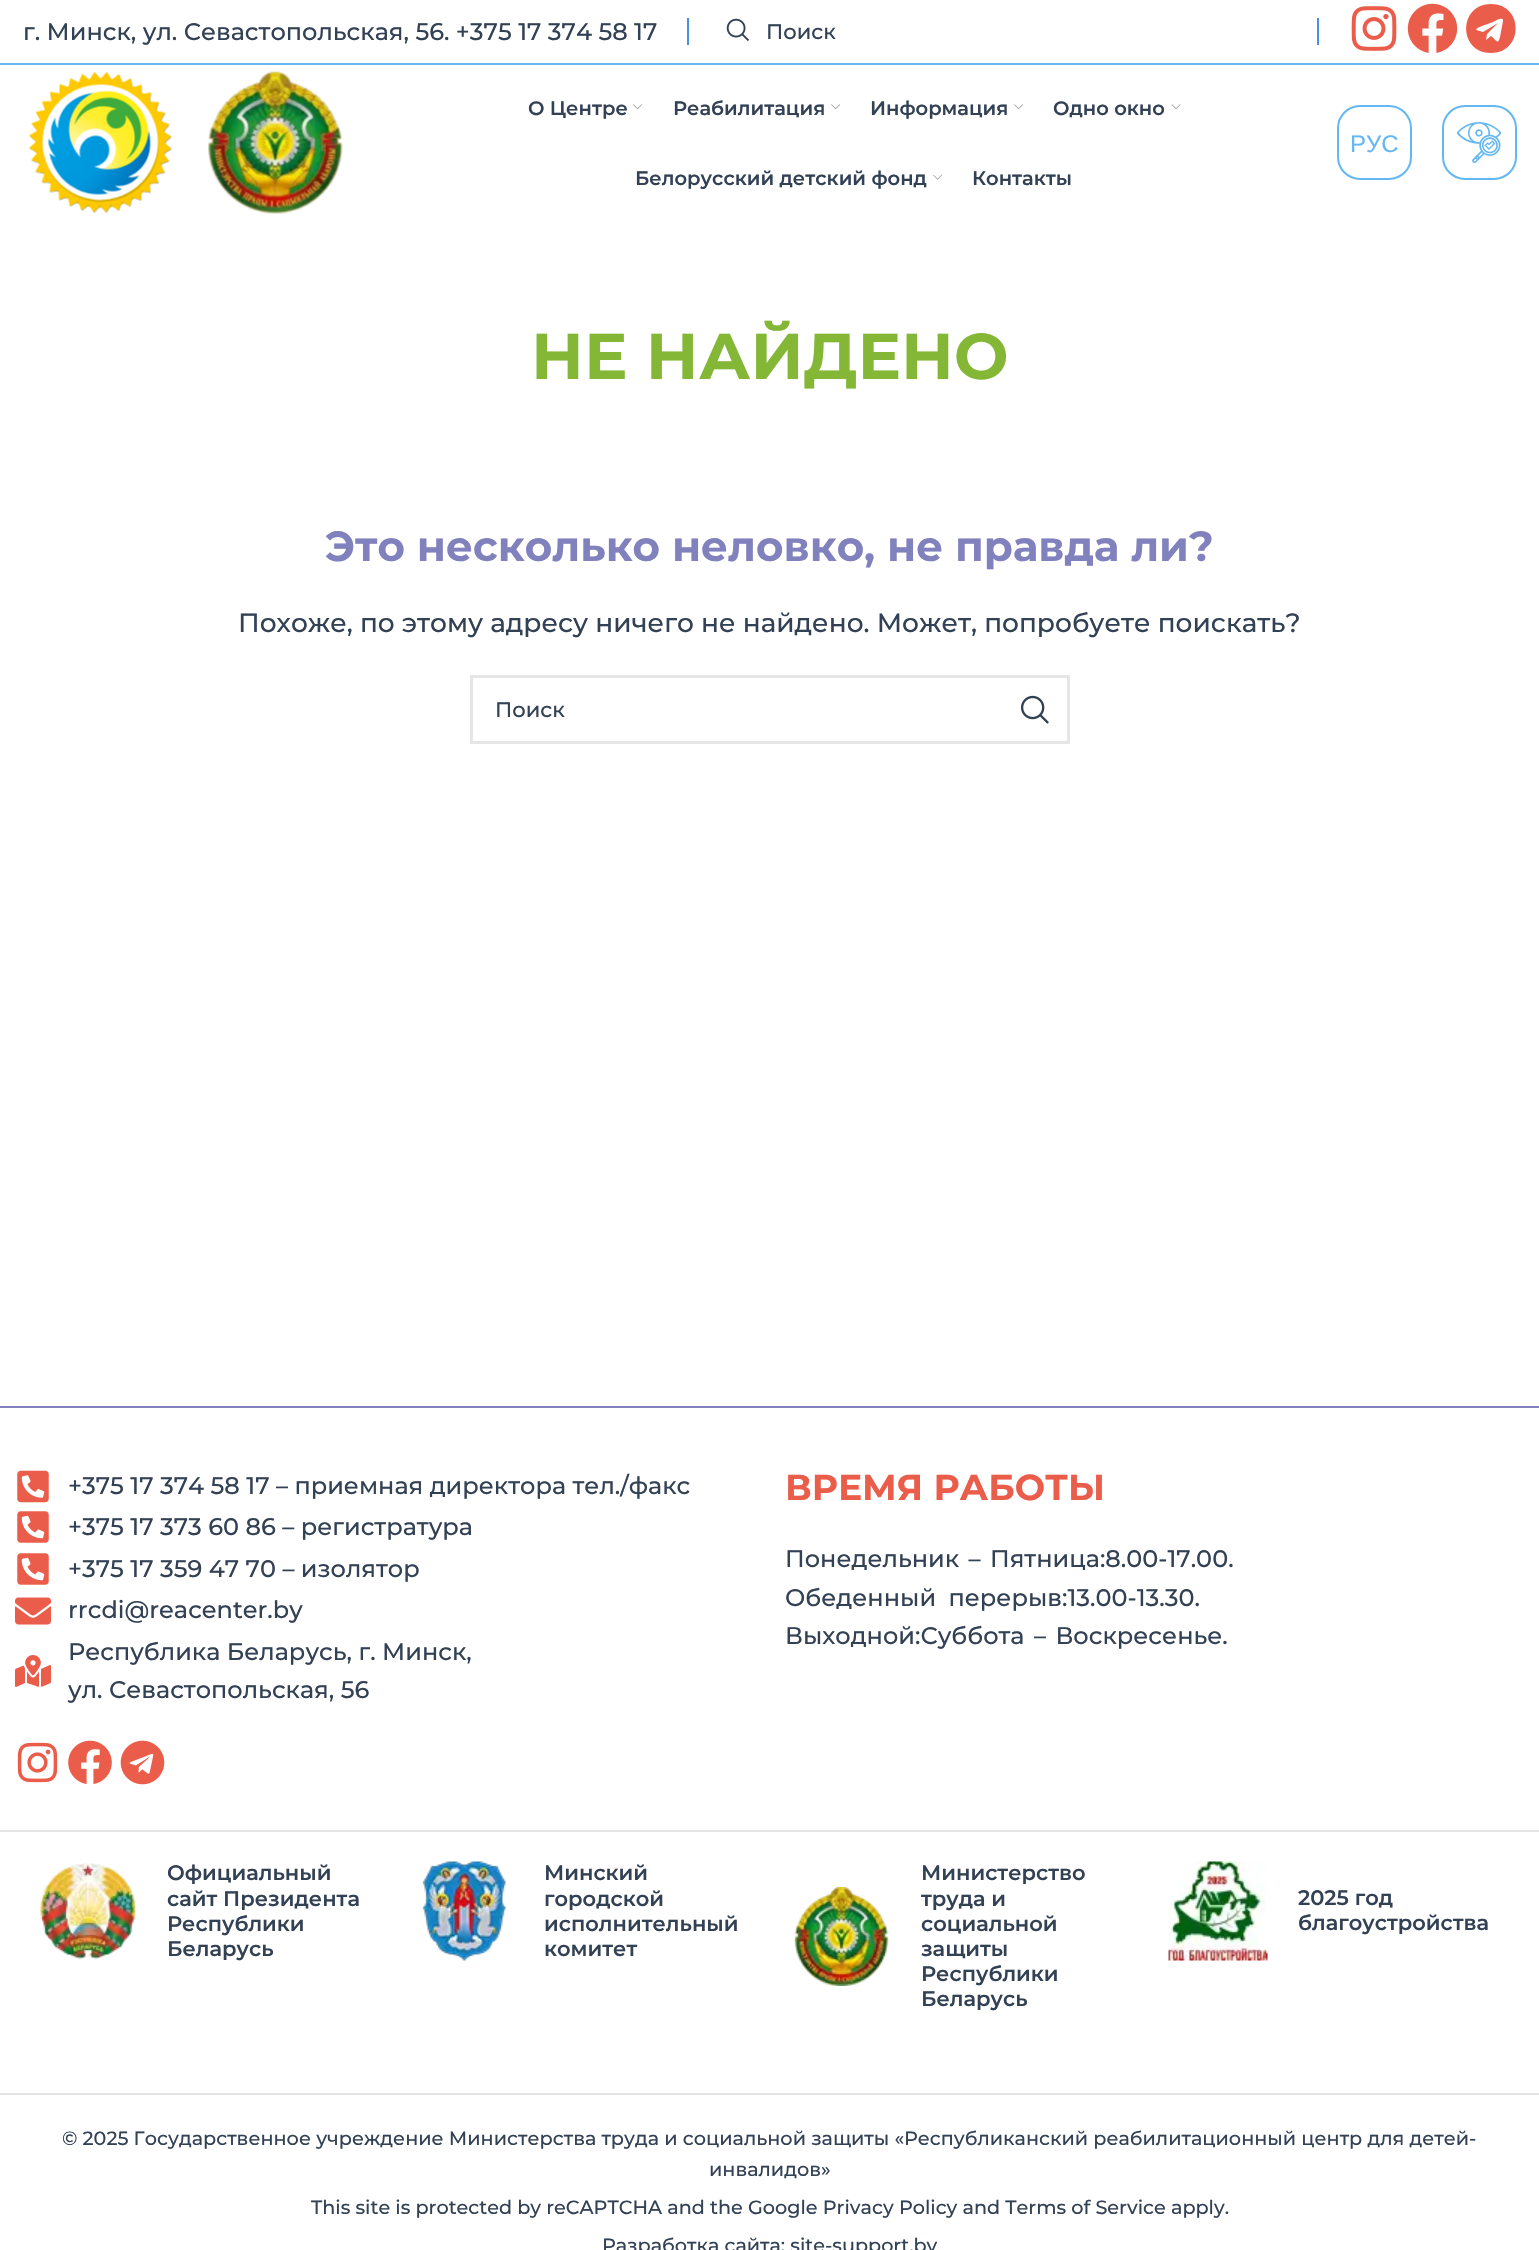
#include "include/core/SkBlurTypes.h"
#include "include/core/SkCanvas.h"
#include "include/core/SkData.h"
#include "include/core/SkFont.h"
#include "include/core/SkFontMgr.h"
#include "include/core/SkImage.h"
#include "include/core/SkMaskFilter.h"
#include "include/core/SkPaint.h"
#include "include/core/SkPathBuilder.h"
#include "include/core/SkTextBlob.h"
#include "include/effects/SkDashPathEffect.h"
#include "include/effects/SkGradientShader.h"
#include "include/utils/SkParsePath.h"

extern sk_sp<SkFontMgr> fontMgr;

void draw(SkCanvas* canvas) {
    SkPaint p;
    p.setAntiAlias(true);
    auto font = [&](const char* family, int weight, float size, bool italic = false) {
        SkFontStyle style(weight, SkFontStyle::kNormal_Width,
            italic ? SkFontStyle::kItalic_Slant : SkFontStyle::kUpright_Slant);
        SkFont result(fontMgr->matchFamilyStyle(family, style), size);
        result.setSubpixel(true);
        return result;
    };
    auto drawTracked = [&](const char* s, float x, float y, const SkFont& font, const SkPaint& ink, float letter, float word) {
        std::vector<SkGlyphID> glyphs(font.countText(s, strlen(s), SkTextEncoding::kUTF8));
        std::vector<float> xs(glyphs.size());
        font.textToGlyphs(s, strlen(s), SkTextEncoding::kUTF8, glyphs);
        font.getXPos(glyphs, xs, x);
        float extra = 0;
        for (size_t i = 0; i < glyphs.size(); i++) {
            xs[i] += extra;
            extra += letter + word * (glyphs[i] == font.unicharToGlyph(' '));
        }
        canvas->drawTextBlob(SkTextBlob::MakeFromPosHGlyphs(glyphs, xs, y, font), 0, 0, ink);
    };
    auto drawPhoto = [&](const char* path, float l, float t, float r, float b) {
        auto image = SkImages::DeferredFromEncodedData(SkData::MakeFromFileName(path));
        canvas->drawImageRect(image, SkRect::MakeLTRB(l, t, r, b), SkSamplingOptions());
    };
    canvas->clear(0xFFFFFFFF);
    p.setColor(0xFF63B7F2);
    canvas->drawRect(SkRect::MakeLTRB(0, 63, 1539, 65), p);
    auto font1 = font("Montserrat", 500, 24);
    p.setColor(0xFF334155);
    canvas->drawString("г. Минск, ул. Севастопольская, 56. +375 17 374 58 17", 23, 40, font1, p);
    p.setColor(0xFF4A90E2);
    canvas->drawRect(SkRect::MakeLTRB(687, 18, 689, 45), p);
    drawPhoto("media/1.png", 726, 18, 750, 42);
    auto font2 = font("Montserrat", 500, 21);
    p.setColor(0xFF334155);
    canvas->drawString("Поиск", 766, 39, font2, p);
    p.setColor(0xFF4A90E2);
    canvas->drawRect(SkRect::MakeLTRB(1317, 18, 1319, 45), p);
    drawPhoto("media/2.png", 1351, 6, 1397, 51);
    drawPhoto("media/3.png", 1407, 3, 1458, 53);
    p.setColor(0xFFEA5D4A);
    canvas->drawPath(SkPathBuilder().moveTo(1491, 4).cubicTo(1458, 4, 1458, 53, 1491, 53).cubicTo(1524, 53, 1524, 4, 1491, 4).close().moveTo(1503, 21).lineTo(1500, 37).cubicTo(1498, 45, 1497, 41, 1491, 36).lineTo(1486, 40).lineTo(1487, 34).lineTo(1498, 23).lineTo(1483, 32).cubicTo(1477, 30, 1472, 30, 1482, 26).lineTo(1493, 22).cubicTo(1495, 21, 1504, 16, 1503, 21).close().detach(), p);
    drawPhoto("media/4.png", 29, 72, 172, 213);
    drawPhoto("media/5.png", 208, 71, 343, 214);
    auto font3 = font("Montserrat", 600, 19.5f);
    p.setColor(0xFF334155);
    canvas->drawString("О Центре", 528, 115, font3, p);
    drawPhoto("media/6.png", 633, 104, 642, 110);
    canvas->drawString("Реабилитация", 673, 115, font3, p);
    drawPhoto("media/6.png", 831, 104, 840, 110);
    canvas->drawString("Информация", 870, 115, font3, p);
    drawPhoto("media/6.png", 1014, 104, 1023, 110);
    canvas->drawString("Одно окно", 1053, 115, font3, p);
    drawPhoto("media/7.png", 1171, 104, 1181, 110);
    canvas->drawString("Белорусский детский фонд", 635, 185, font3, p);
    drawPhoto("media/8.png", 933, 174, 942, 180);
    canvas->drawString("Контакты", 972, 185, font3, p);
    p.setStyle(SkPaint::kStroke_Style);
    p.setStrokeWidth(2);
    p.setColor(0xFF63B7F2);
    canvas->drawRoundRect(SkRect::MakeLTRB(1338, 106, 1411, 179), 22, 22, p);
    auto font4 = font("Liberation Sans", 400, 24);
    p.setStyle(SkPaint::kFill_Style);
    canvas->drawString("РУС", 1350, 152, font4, p);
    p.setStyle(SkPaint::kStroke_Style);
    canvas->drawRoundRect(SkRect::MakeLTRB(1443, 106, 1516, 179), 22, 22, p);
    drawPhoto("media/9.png", 1457, 122, 1502, 163);
    auto font5 = font("Montserrat", 700, 64.75f);
    p.setStyle(SkPaint::kFill_Style);
    p.setColor(0xFF83B735);
    canvas->drawString("НЕ НАЙДЕНО", 531, 379, font5, p);
    auto font6 = font("Montserrat", 700, 42);
    p.setColor(0xFF8081BD);
    canvas->drawString("Это несколько неловко, не правда ли?", 325, 561, font6, p);
    auto font7 = font("Montserrat", 500, 26.4f);
    p.setColor(0xFF334155);
    canvas->drawString("Похоже, по этому адресу ничего не найдено. Может, попробуете поискать?", 238, 632, font7, p);
    p.setStyle(SkPaint::kStroke_Style);
    p.setStrokeWidth(3);
    p.setColor(0xFFE6E6E6);
    canvas->drawRect(SkRect::MakeLTRB(471.5f, 676.5f, 1068.5f, 742.5f), p);
    p.setStyle(SkPaint::kFill_Style);
    p.setColor(0xFF334155);
    canvas->drawString("Поиск", 495, 717, font2, p);
    drawPhoto("media/10.png", 1020, 695, 1049, 724);
    p.setColor(0xFF8081BD);
    canvas->drawRect(SkRect::MakeLTRB(0, 1406, 1539, 1408), p);
    drawPhoto("media/11.png", 17, 1470, 49, 1503);
    p.setColor(0xFF334155);
    canvas->drawString("+375 17 374 58 17 – приемная директора тел./факс", 68, 1494, font1, p);
    drawPhoto("media/12.png", 17, 1511, 49, 1543);
    canvas->drawString("+375 17 373 60 86 – регистратура", 68, 1535, font1, p);
    drawPhoto("media/12.png", 17, 1553, 49, 1585);
    canvas->drawString("+375 17 359 47 70 – изолятор", 68, 1577, font1, p);
    drawPhoto("media/13.png", 15, 1597, 51, 1625);
    canvas->drawString("rrcdi@reacenter.by", 68, 1618, font1, p);
    drawPhoto("media/14.png", 15, 1655, 51, 1687);
    canvas->drawString("Республика Беларусь, г. Минск,", 68, 1660, font1, p);
    canvas->drawString("ул. Севастопольская, 56", 68, 1698, font1, p);
    drawPhoto("media/15.png", 17, 1742, 58, 1783);
    drawPhoto("media/16.png", 68, 1740, 112, 1784);
    drawPhoto("media/17.png", 120, 1740, 165, 1785);
    auto font8 = font("Montserrat", 700, 36);
    p.setColor(0xFFEA5D4A);
    canvas->drawString("ВРЕМЯ РАБОТЫ", 785, 1500, font8, p);
    p.setColor(0xFF334155);
    drawTracked("Понедельник – Пятница:8.00-17.00.", 785, 1567, font1, p, 0, 3);
    drawTracked("Обеденный перерыв:13.00-13.30.", 785, 1606, font1, p, 0, 6);
    drawTracked("Выходной:Суббота – Воскресенье.", 785, 1644, font1, p, 0, 3);
    p.setColor(0xFFE4E4E4);
    canvas->drawRect(SkRect::MakeLTRB(0, 1830, 1539, 1832), p);
    drawPhoto("media/18.png", 40, 1863, 137, 1960);
    auto font9 = font("Montserrat", 600, 21);
    p.setColor(0xFF334155);
    {
        const struct { const char* s; float x, y; } items[] = {
            {"Официальный", 167, 1880},
            {"сайт Президента", 167, 1906},
            {"Республики", 167, 1931},
            {"Беларусь", 167, 1956},
        };
        for (auto [s, x, y] : items) {
            canvas->drawString(s, x, y, font9, p);
        }
    }
    drawPhoto("media/19.png", 422, 1861, 506, 1961);
    {
        const struct { const char* s; float x, y; } items[] = {
            {"Минский", 544, 1880},
            {"городской", 544, 1906},
            {"исполнительный", 544, 1931},
            {"комитет", 544, 1956},
        };
        for (auto [s, x, y] : items) {
            canvas->drawString(s, x, y, font9, p);
        }
    }
    drawPhoto("media/20.png", 794, 1887, 889, 1986);
    {
        const struct { const char* s; float x, y; } items[] = {
            {"Министерство", 921, 1880},
            {"труда и", 921, 1906},
            {"социальной", 921, 1931},
            {"защиты", 921, 1956},
            {"Республики", 921, 1981},
            {"Беларусь", 921, 2006},
        };
        for (auto [s, x, y] : items) {
            canvas->drawString(s, x, y, font9, p);
        }
    }
    drawPhoto("media/21.png", 1168, 1861, 1268, 1961);
    canvas->drawString("2025 год", 1298, 1905, font9, p);
    canvas->drawString("благоустройства", 1298, 1930, font9, p);
    p.setColor(0xFFE4E4E4);
    canvas->drawRect(SkRect::MakeLTRB(0, 2093, 1539, 2095), p);
    auto font10 = font("Montserrat", 500, 19.2f);
    p.setColor(0xFF334155);
    {
        const struct { const char* s; float x, y; } items[] = {
            {"© 2025 Государственное учреждение Министерства труда и социальной защиты «Республиканский реабилитационный центр для детей-", 62, 2145},
            {"инвалидов»", 709, 2176},
            {"This site is protected by reCAPTCHA and the Google Privacy Policy and Terms of Service apply.", 311, 2214},
            {"Разработка сайта: site-support.by", 602, 2252},
        };
        for (auto [s, x, y] : items) {
            canvas->drawString(s, x, y, font10, p);
        }
    }
}
